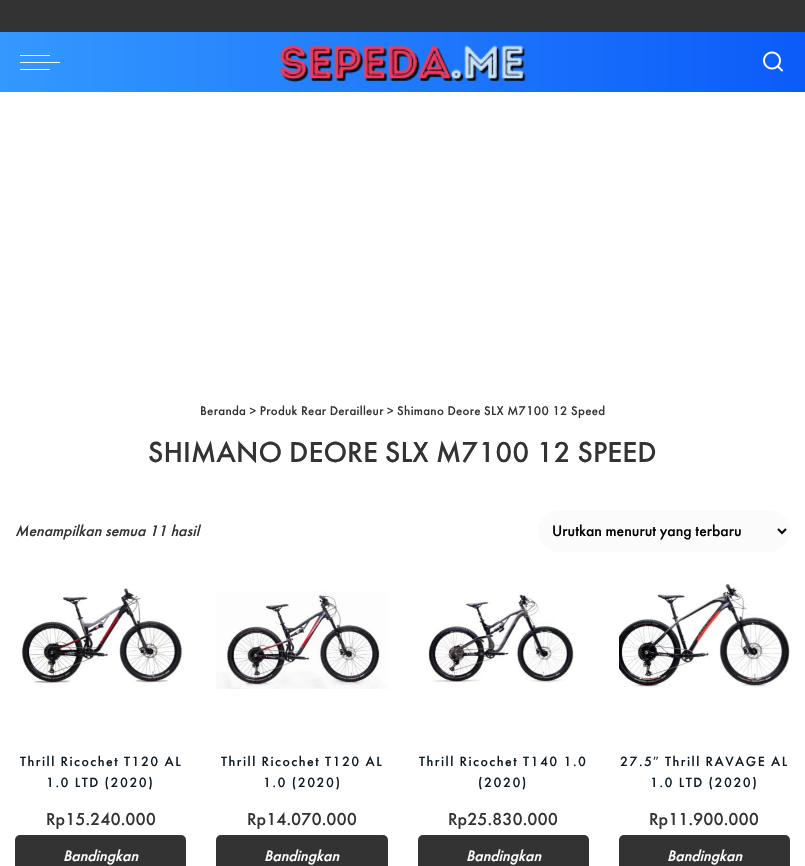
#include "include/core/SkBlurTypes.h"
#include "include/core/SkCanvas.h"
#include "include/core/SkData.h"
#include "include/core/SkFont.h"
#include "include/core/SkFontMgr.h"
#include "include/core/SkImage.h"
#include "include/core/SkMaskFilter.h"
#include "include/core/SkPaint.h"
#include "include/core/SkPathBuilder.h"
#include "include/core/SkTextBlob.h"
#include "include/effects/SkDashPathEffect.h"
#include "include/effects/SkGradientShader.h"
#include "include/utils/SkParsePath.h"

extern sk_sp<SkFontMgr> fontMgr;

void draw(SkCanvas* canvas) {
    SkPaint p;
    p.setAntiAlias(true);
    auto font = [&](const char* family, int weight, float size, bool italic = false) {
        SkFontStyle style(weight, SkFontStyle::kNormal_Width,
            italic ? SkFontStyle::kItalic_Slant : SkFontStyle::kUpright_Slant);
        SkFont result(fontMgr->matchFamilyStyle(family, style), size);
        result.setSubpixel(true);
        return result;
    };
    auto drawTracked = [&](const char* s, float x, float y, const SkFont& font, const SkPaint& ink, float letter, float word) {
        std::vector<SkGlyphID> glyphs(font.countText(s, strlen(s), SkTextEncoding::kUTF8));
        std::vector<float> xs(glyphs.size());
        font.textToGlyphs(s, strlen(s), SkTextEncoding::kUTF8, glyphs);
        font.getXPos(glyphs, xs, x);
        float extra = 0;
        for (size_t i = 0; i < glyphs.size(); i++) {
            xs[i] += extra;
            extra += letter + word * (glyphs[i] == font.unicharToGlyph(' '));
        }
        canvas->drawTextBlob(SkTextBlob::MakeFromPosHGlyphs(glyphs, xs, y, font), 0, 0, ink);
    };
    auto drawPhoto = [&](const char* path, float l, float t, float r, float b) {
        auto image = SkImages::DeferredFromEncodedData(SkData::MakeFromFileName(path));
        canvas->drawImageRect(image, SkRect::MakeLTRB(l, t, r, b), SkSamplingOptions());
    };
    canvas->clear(0xFFFFFFFF);
    p.setColor(0xFF333333);
    canvas->drawRect(SkRect::MakeLTRB(0, 0, 805, 32), p);
    {
        const SkColor colors[] = {0xFF3399FF, 0xFF0C5BF9};
        const float stops[] = {0, 1};
        const SkPoint ends[] = {{0, 62}, {805, 62}};
        p.setShader(SkGradientShader::MakeLinear(ends, colors, stops, 2, SkTileMode::kClamp));
        p.setAlpha(255);
    }
    canvas->drawRect(SkRect::MakeLTRB(0, 32, 805, 92), p);
    p.setShader(nullptr);
    {
        const struct { float l, t, r, b; SkColor color; } items[] = {
            {20, 62, 60, 63, 0xFFFFFFFF},
            {20, 55, 50, 56, 0xFFFFFFFF},
            {20, 69, 50, 70, 0xFFFFFFFF},
        };
        for (auto [l, t, r, b, color] : items) {
            p.setColor(color);
            canvas->drawRect(SkRect::MakeLTRB(l, t, r, b), p);
        }
    }
    drawPhoto("media/1.png", 279, 45, 526, 83);
    drawPhoto("media/2.png", 763, 51, 783, 72);
    auto font1 = font("Futura PT", 500, 13);
    p.setColor(0xFF333333);
    drawTracked("Beranda > Produk Rear Derailleur > Shimano Deore SLX M7100 12 Speed", 200, 415, font1, p, 0.27f, 0);
    auto font2 = font("Futura PT", 500, 30);
    canvas->drawString("SHIMANO DEORE SLX M7100 12 SPEED", 148, 462, font2, p);
    auto font3 = font("Futura PT", 500, 15.75f, true);
    canvas->drawString("Menampilkan semua 11 hasil", 15, 536, font3, p);
    p.setColor(0xFFFBFBFB);
    canvas->drawRoundRect(SkRect::MakeLTRB(538, 510, 790, 552), 21, 21, p);
    p.setStyle(SkPaint::kStroke_Style);
    p.setStrokeWidth(2);
    p.setColor(0xFF000000);
    canvas->drawPath(SkPathBuilder().moveTo(778, 529).lineTo(782, 533).lineTo(786, 529).detach(), p);
    auto font4 = font("Futura PT", 500, 15.75f);
    p.setStyle(SkPaint::kFill_Style);
    canvas->drawString("Urutkan menurut yang terbaru", 552, 536, font4, p);
    drawPhoto("media/3.png", 20, 588, 184, 685);
    auto font5 = font("Futura PT", 500, 14);
    p.setColor(0xFF0E1B25);
    drawTracked("Thrill Ricochet T120 AL", 20, 766, font5, p, 1.5f, 0);
    drawTracked("1.0 LTD (2020)", 46, 787, font5, p, 1.5f, 0);
    auto font6 = font("Futura PT", 500, 18);
    p.setColor(0xFF333333);
    canvas->drawString("Rp15.240.000", 46, 825, font6, p);
    canvas->drawRoundRect(SkRect::MakeLTRB(15, 835, 186, 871), 5, 5, p);
    p.setColor(0xFFFFFFFF);
    canvas->drawString("Bandingkan", 63, 861, font3, p);
    drawPhoto("media/4.png", 216, 591, 388, 689);
    p.setColor(0xFF0E1B25);
    drawTracked("Thrill Ricochet T120 AL", 221, 766, font5, p, 1.5f, 0);
    drawTracked("1.0 (2020)", 263, 787, font5, p, 1.5f, 0);
    p.setColor(0xFF333333);
    canvas->drawString("Rp14.070.000", 247, 825, font6, p);
    canvas->drawRoundRect(SkRect::MakeLTRB(216, 835, 388, 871), 5, 5, p);
    p.setColor(0xFFFFFFFF);
    canvas->drawString("Bandingkan", 264, 861, font3, p);
    drawPhoto("media/5.png", 427, 592, 574, 683);
    p.setColor(0xFF0E1B25);
    drawTracked("Thrill Ricochet T140 1.0", 419, 766, font5, p, 1.5f, 0);
    drawTracked("(2020)", 478, 787, font5, p, 1.5f, 0);
    p.setColor(0xFF333333);
    canvas->drawString("Rp25.830.000", 448, 825, font6, p);
    canvas->drawRoundRect(SkRect::MakeLTRB(418, 835, 589, 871), 5, 5, p);
    p.setColor(0xFFFFFFFF);
    canvas->drawString("Bandingkan", 466, 861, font3, p);
    drawPhoto("media/6.png", 619, 582, 790, 689);
    p.setColor(0xFF0E1B25);
    drawTracked("27.5", 620, 766, font5, p, 1.5f, 0);
    auto font7 = font("Liberation Serif", 400, 14);
    drawTracked("″", 653, 766, font7, p, 1.5f, 0);
    drawTracked("Thrill RAVAGE AL", 665, 766, font5, p, 1.5f, 0);
    drawTracked("1.0 LTD (2020)", 650, 787, font5, p, 1.5f, 0);
    p.setColor(0xFF333333);
    canvas->drawString("Rp11.900.000", 649, 825, font6, p);
    canvas->drawRoundRect(SkRect::MakeLTRB(619, 835, 790, 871), 5, 5, p);
    p.setColor(0xFFFFFFFF);
    canvas->drawString("Bandingkan", 667, 861, font3, p);
}
